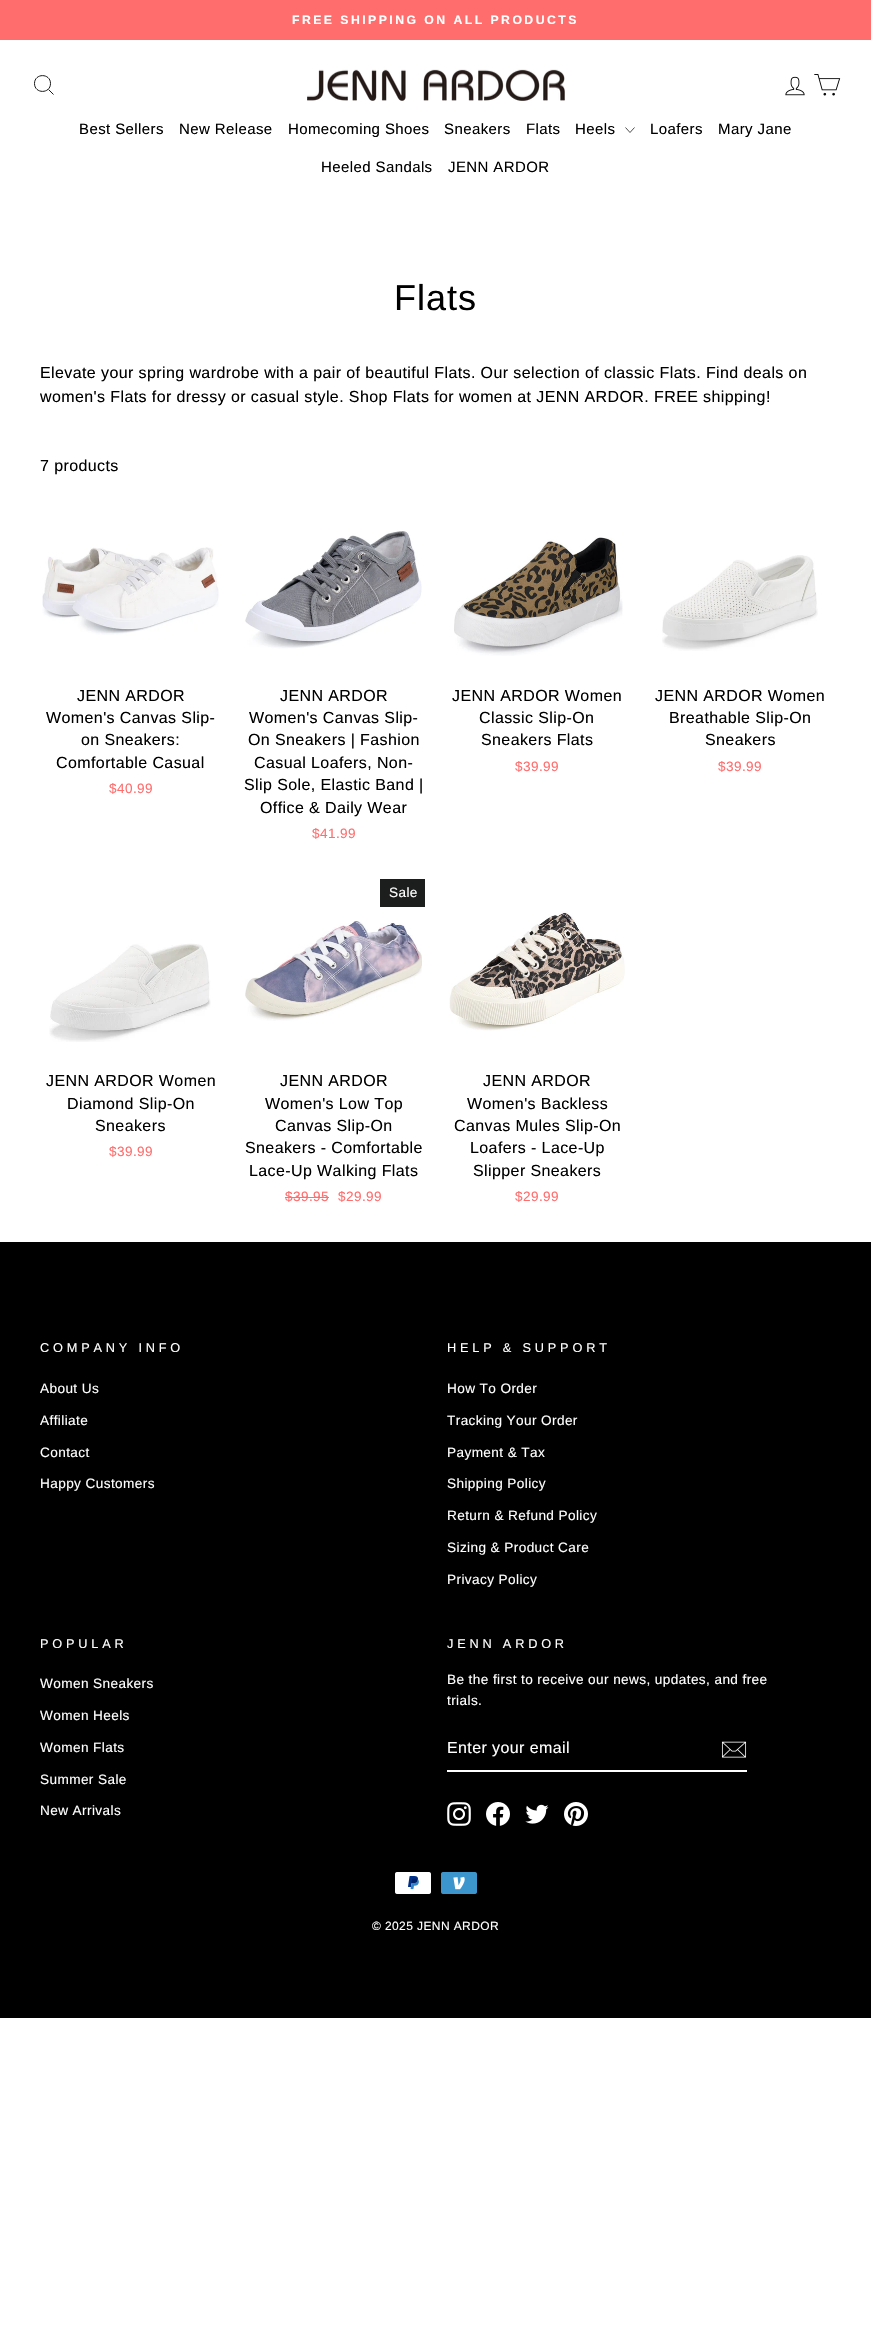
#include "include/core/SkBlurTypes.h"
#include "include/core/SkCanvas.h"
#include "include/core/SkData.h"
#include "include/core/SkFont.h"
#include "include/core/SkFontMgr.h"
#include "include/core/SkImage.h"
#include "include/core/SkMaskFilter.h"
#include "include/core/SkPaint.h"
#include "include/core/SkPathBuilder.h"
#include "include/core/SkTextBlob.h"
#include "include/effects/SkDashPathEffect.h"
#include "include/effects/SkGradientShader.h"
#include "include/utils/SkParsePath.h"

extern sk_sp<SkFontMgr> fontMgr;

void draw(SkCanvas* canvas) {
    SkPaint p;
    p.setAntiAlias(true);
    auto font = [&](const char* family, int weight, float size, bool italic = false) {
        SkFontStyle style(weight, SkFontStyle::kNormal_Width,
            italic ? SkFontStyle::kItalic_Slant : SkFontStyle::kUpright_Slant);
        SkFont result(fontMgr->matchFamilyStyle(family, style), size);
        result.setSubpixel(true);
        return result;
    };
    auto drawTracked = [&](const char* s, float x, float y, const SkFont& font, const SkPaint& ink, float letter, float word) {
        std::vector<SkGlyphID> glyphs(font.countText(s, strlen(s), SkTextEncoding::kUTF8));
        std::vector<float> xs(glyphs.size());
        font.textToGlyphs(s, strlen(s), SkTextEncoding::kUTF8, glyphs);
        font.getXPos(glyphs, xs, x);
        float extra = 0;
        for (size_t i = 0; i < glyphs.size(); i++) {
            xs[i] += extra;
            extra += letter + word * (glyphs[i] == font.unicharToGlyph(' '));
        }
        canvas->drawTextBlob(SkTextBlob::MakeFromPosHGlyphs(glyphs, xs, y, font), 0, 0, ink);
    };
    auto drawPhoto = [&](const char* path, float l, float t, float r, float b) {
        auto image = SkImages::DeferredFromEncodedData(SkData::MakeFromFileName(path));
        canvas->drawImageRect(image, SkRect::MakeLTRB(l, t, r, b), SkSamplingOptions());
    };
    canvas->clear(0xFFFFFFFF);
    p.setColor(0xFFFF6D6D);
    canvas->drawRect(SkRect::MakeLTRB(0, 0, 871, 40), p);
    auto font1 = font("Liberation Sans", 700, 12.25f);
    p.setColor(0xFFFFFFFF);
    drawTracked("FREE SHIPPING ON ALL PRODUCTS", 292, 24, font1, p, 2.45f, 0);
    p.setStyle(SkPaint::kStroke_Style);
    p.setStrokeWidth(0.9f);
    p.setColor(0xFF000000);
    canvas->drawPath(SkPathBuilder().moveTo(50.5f, 83.5f).cubicTo(50.5f, 94, 34.5f, 94, 34.5f, 83.5f).cubicTo(34.5f, 73, 50.5f, 73, 50.5f, 83.5f).close().moveTo(53.5f, 94.5f).lineTo(48.5f, 89.5f).detach(), p);
    drawPhoto("media/1.png", 307, 69, 565, 101);
    drawPhoto("media/2.png", 785, 76, 805, 96);
    drawPhoto("media/3.png", 814, 74, 841, 96);
    auto font2 = font("Liberation Sans", 400, 15);
    p.setStyle(SkPaint::kFill_Style);
    {
        const struct { const char* s; float x, y; } items[] = {
            {"Best Sellers", 79, 134},
            {"New Release", 179, 134},
            {"Homecoming Shoes", 288, 134},
            {"Sneakers", 444, 134},
            {"Flats", 526, 134},
            {"Heels", 575, 134},
        };
        for (auto [s, x, y] : items) {
            drawTracked(s, x, y, font2, p, 0.4f, 0);
        }
    }
    p.setStyle(SkPaint::kStroke_Style);
    p.setStrokeWidth(0.7f);
    canvas->drawPath(SkPathBuilder().moveTo(625.5f, 127.5f).lineTo(630, 132.5f).lineTo(634.5f, 127.5f).detach(), p);
    p.setStyle(SkPaint::kFill_Style);
    {
        const struct { const char* s; float x, y; } items[] = {
            {"Loafers", 650, 134},
            {"Mary Jane", 718, 134},
            {"Heeled Sandals", 321, 172},
            {"JENN ARDOR", 448, 172},
        };
        for (auto [s, x, y] : items) {
            drawTracked(s, x, y, font2, p, 0.4f, 0);
        }
    }
    auto font3 = font("Liberation Sans", 400, 36);
    drawTracked("Flats", 394, 310, font3, p, 1, 0);
    auto font4 = font("Liberation Sans", 400, 16);
    {
        const struct { const char* s; float x, y; } items[] = {
            {"Elevate your spring wardrobe with a pair of beautiful Flats. Our selection of classic Flats. Find deals on", 40, 378},
            {"women's Flats for dressy or casual style. Shop Flats for women at JENN ARDOR. FREE shipping!", 40, 402},
            {"7 products", 40, 471},
        };
        for (auto [s, x, y] : items) {
            drawTracked(s, x, y, font4, p, 0.4f, 0);
        }
    }
    drawPhoto("media/4.png", 42, 547, 219, 635);
    {
        const struct { const char* s; float x, y; } items[] = {
            {"JENN ARDOR", 77, 701},
            {"Women's Canvas Slip-", 46, 723},
            {"on Sneakers:", 81, 745},
            {"Comfortable Casual", 56, 768},
        };
        for (auto [s, x, y] : items) {
            drawTracked(s, x, y, font4, p, 0.4f, 0);
        }
    }
    auto font5 = font("Liberation Sans", 400, 13.6f);
    p.setColor(0xFFFF6D6D);
    drawTracked("$40.99", 109, 793, font5, p, 0.4f, 0);
    drawPhoto("media/5.png", 245, 531, 422, 649);
    p.setColor(0xFF000000);
    {
        const struct { const char* s; float x, y; } items[] = {
            {"JENN ARDOR", 280, 701},
            {"Women's Canvas Slip-", 249, 723},
            {"On Sneakers | Fashion", 248, 745},
            {"Casual Loafers, Non-", 254, 768},
            {"Slip Sole, Elastic Band |", 244, 790},
            {"Office & Daily Wear", 260, 813},
        };
        for (auto [s, x, y] : items) {
            drawTracked(s, x, y, font4, p, 0.4f, 0);
        }
    }
    p.setColor(0xFFFF6D6D);
    drawTracked("$41.99", 312, 838, font5, p, 0.4f, 0);
    drawPhoto("media/6.png", 454, 537, 623, 656);
    p.setColor(0xFF000000);
    {
        const struct { const char* s; float x, y; } items[] = {
            {"JENN ARDOR Women", 452, 701},
            {"Classic Slip-On", 479, 723},
            {"Sneakers Flats", 481, 745},
        };
        for (auto [s, x, y] : items) {
            drawTracked(s, x, y, font4, p, 0.4f, 0);
        }
    }
    p.setColor(0xFFFF6D6D);
    drawTracked("$39.99", 515, 771, font5, p, 0.4f, 0);
    drawPhoto("media/7.png", 662, 555, 818, 651);
    p.setColor(0xFF000000);
    {
        const struct { const char* s; float x, y; } items[] = {
            {"JENN ARDOR Women", 655, 701},
            {"Breathable Slip-On", 669, 723},
            {"Sneakers", 705, 745},
        };
        for (auto [s, x, y] : items) {
            drawTracked(s, x, y, font4, p, 0.4f, 0);
        }
    }
    p.setColor(0xFFFF6D6D);
    drawTracked("$39.99", 718, 771, font5, p, 0.4f, 0);
    drawPhoto("media/8.png", 49, 943, 211, 1042);
    p.setColor(0xFF000000);
    {
        const struct { const char* s; float x, y; } items[] = {
            {"JENN ARDOR Women", 46, 1086},
            {"Diamond Slip-On", 67, 1109},
            {"Sneakers", 95, 1131},
        };
        for (auto [s, x, y] : items) {
            drawTracked(s, x, y, font4, p, 0.4f, 0);
        }
    }
    p.setColor(0xFFFF6D6D);
    drawTracked("$39.99", 109, 1156, font5, p, 0.4f, 0);
    p.setColor(0xFF1C1D1D);
    canvas->drawRect(SkRect::MakeLTRB(380, 879, 425, 907), p);
    p.setColor(0xFFFFFFFF);
    drawTracked("Sale", 389, 897, font5, p, 0.4f, 0);
    drawPhoto("media/9.png", 245, 921, 422, 1021);
    p.setColor(0xFF000000);
    {
        const struct { const char* s; float x, y; } items[] = {
            {"JENN ARDOR", 280, 1086},
            {"Women's Low Top", 265, 1109},
            {"Canvas Slip-On", 275, 1131},
            {"Sneakers - Comfortable", 245, 1153},
            {"Lace-Up Walking Flats", 249, 1176},
        };
        for (auto [s, x, y] : items) {
            drawTracked(s, x, y, font4, p, 0.4f, 0);
        }
    }
    p.setColor(0xFFFF6D6D);
    drawTracked("$39.95", 285, 1201, font5, p, 0.4f, 0);
    canvas->drawRect(SkRect::MakeLTRB(285, 1197, 329, 1198), p);
    drawTracked("$29.99", 338, 1201, font5, p, 0.4f, 0);
    drawPhoto("media/10.png", 449, 911, 625, 1031);
    p.setColor(0xFF000000);
    {
        const struct { const char* s; float x, y; } items[] = {
            {"JENN ARDOR", 483, 1086},
            {"Women's Backless", 467, 1109},
            {"Canvas Mules Slip-On", 454, 1131},
            {"Loafers - Lace-Up", 470, 1153},
            {"Slipper Sneakers", 473, 1176},
        };
        for (auto [s, x, y] : items) {
            drawTracked(s, x, y, font4, p, 0.4f, 0);
        }
    }
    p.setColor(0xFFFF6D6D);
    drawTracked("$29.99", 515, 1201, font5, p, 0.4f, 0);
    p.setColor(0xFF000000);
    canvas->drawRect(SkRect::MakeLTRB(0, 1242, 871, 2018), p);
    auto font6 = font("Liberation Sans", 400, 12.75f);
    p.setColor(0xFFFFFFFF);
    drawTracked("COMPANY INFO", 40, 1352, font6, p, 3.8f, 0);
    {
        const struct { const char* s; float x, y; } items[] = {
            {"About Us", 40, 1393},
            {"Affiliate", 40, 1425},
            {"Contact", 40, 1457},
            {"Happy Customers", 40, 1488},
        };
        for (auto [s, x, y] : items) {
            drawTracked(s, x, y, font5, p, 0.4f, 0);
        }
    }
    drawTracked("HELP & SUPPORT", 447, 1352, font6, p, 3.8f, 0);
    {
        const struct { const char* s; float x, y; } items[] = {
            {"How To Order", 447, 1393},
            {"Tracking Your Order", 447, 1425},
            {"Payment & Tax", 447, 1457},
            {"Shipping Policy", 447, 1488},
            {"Return & Refund Policy", 447, 1520},
            {"Sizing & Product Care", 447, 1552},
            {"Privacy Policy", 447, 1584},
        };
        for (auto [s, x, y] : items) {
            drawTracked(s, x, y, font5, p, 0.4f, 0);
        }
    }
    drawTracked("POPULAR", 40, 1648, font6, p, 3.8f, 0);
    {
        const struct { const char* s; float x, y; } items[] = {
            {"Women Sneakers", 40, 1688},
            {"Women Heels", 40, 1720},
            {"Women Flats", 40, 1752},
            {"Summer Sale", 40, 1784},
            {"New Arrivals", 40, 1815},
        };
        for (auto [s, x, y] : items) {
            drawTracked(s, x, y, font5, p, 0.4f, 0);
        }
    }
    drawTracked("JENN ARDOR", 447, 1648, font6, p, 3.8f, 0);
    drawTracked("Be the first to receive our news, updates, and free", 447, 1684, font5, p, 0.4f, 0);
    drawTracked("trials.", 447, 1705, font5, p, 0.4f, 0);
    canvas->drawRect(SkRect::MakeLTRB(447, 1770, 747, 1772), p);
    drawTracked("Enter your email", 447, 1753, font4, p, 0.4f, 0);
    drawPhoto("media/11.png", 721, 1741, 747, 1758);
    drawPhoto("media/12.png", 447, 1802, 471, 1826);
    drawPhoto("media/13.png", 486, 1802, 510, 1826);
    drawPhoto("media/14.png", 525, 1804, 549, 1824);
    drawPhoto("media/15.png", 564, 1802, 588, 1826);
    drawPhoto("media/16.png", 395, 1872, 431, 1894);
    drawPhoto("media/17.png", 441, 1872, 477, 1894);
    auto font7 = font("Liberation Sans", 400, 12);
    drawTracked("© 2025 JENN ARDOR", 372, 1930, font7, p, 0.4f, 0);
}
